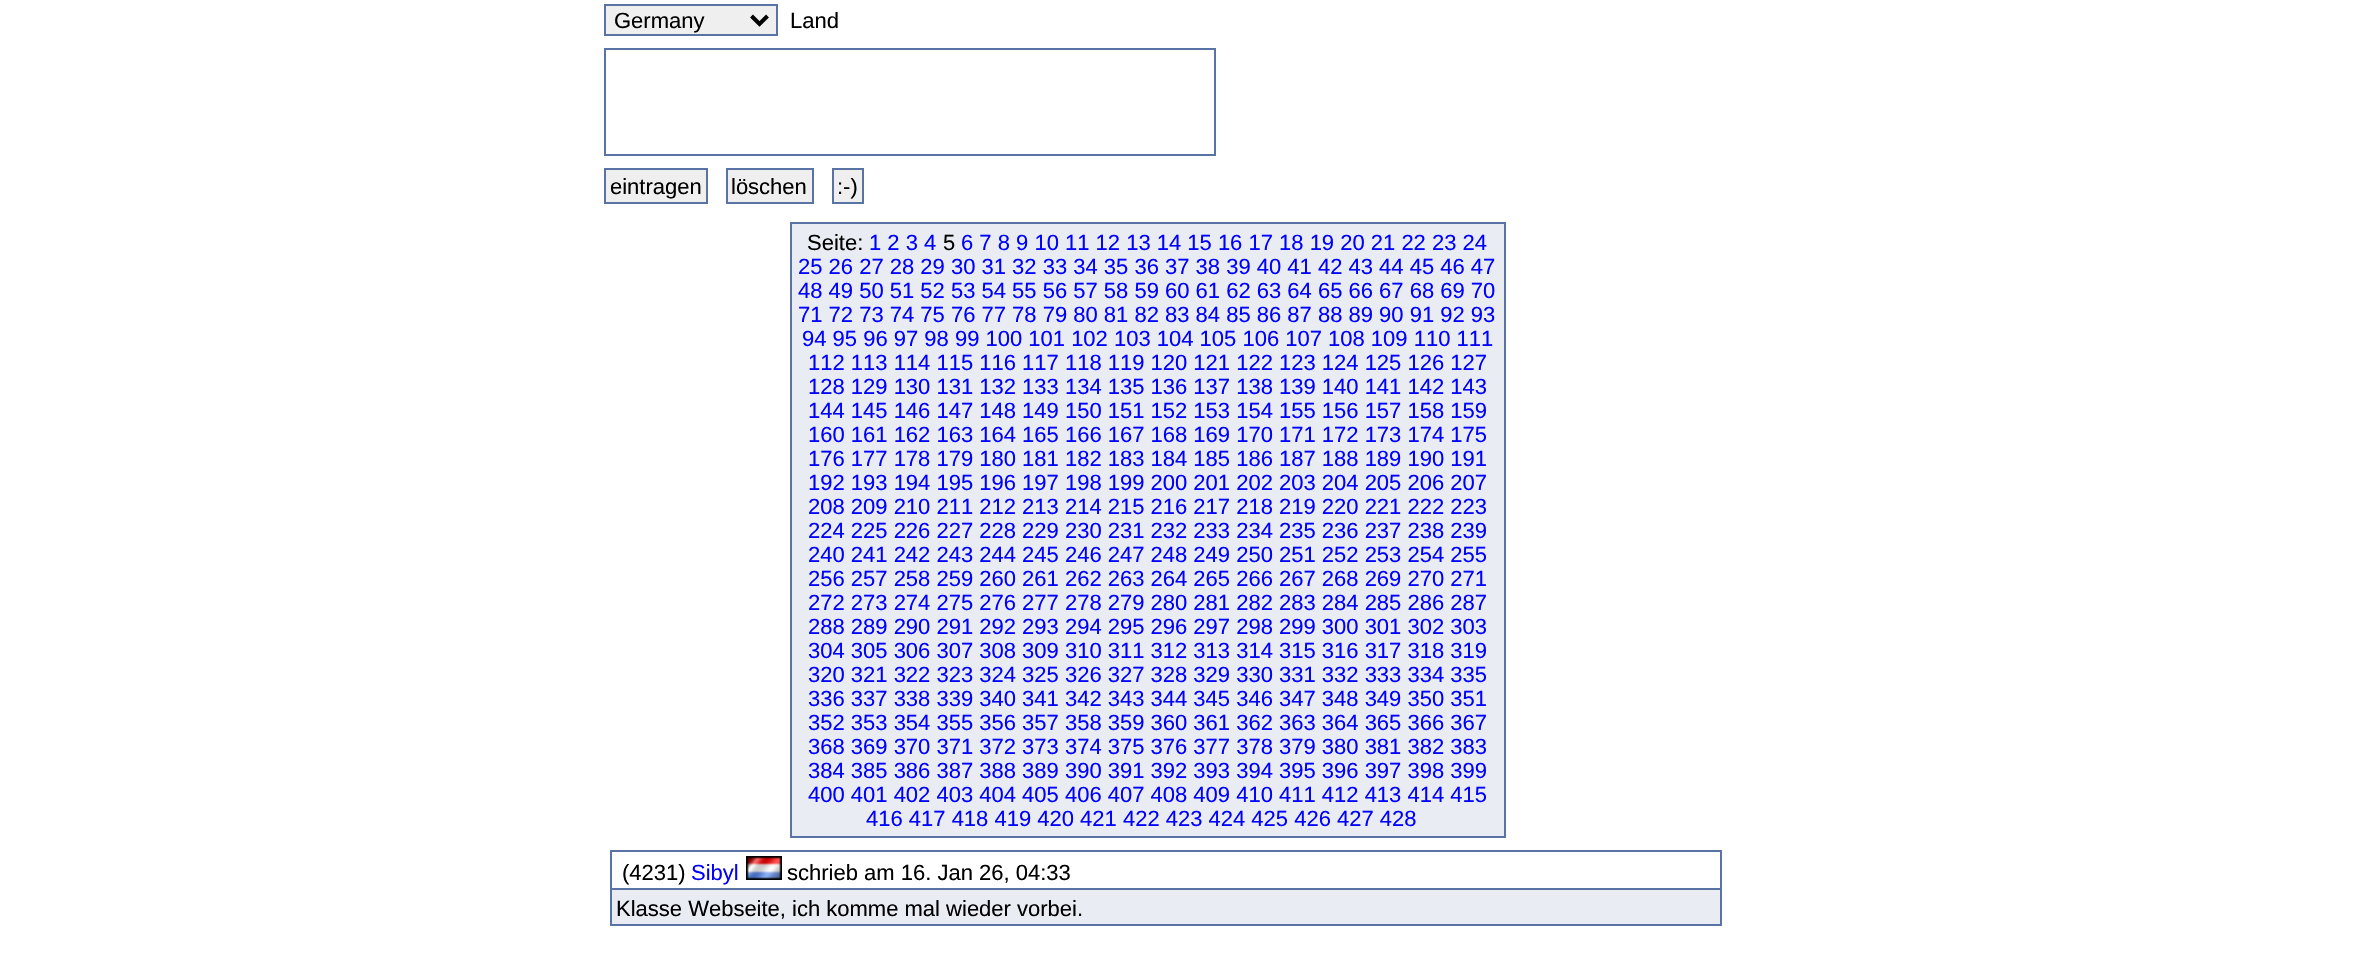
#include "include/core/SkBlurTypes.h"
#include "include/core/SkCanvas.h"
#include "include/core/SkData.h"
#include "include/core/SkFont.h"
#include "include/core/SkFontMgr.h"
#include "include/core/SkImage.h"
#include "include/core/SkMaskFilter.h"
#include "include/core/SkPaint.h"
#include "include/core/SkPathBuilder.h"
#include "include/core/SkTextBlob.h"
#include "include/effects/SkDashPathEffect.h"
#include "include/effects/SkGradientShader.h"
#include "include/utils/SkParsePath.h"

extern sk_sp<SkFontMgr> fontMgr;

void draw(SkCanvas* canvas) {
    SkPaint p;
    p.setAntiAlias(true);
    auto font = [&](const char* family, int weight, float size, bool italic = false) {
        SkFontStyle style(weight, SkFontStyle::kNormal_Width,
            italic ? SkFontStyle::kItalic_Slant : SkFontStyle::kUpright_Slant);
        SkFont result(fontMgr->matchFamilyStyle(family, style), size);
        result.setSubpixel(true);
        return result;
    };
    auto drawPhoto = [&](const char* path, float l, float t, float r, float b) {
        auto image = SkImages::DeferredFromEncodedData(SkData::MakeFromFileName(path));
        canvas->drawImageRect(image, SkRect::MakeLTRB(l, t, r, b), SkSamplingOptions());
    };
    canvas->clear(0xFFFFFFFF);
    p.setColor(0xFFEFEFEF);
    canvas->drawRect(SkRect::MakeLTRB(605, 5, 777, 35), p);
    p.setStyle(SkPaint::kStroke_Style);
    p.setStrokeWidth(2);
    p.setColor(0xFF5973A5);
    canvas->drawRect(SkRect::MakeLTRB(605, 5, 777, 35), p);
    p.setStrokeWidth(4);
    p.setColor(0xFF000000);
    canvas->drawPath(SkPathBuilder().moveTo(751.5f, 16).lineTo(759.5f, 24).lineTo(767.5f, 16).detach(), p);
    auto font1 = font("Liberation Sans", 400, 22);
    p.setStyle(SkPaint::kFill_Style);
    canvas->drawString("Germany", 614, 28, font1, p);
    canvas->drawString("Land", 790, 28, font1, p);
    p.setStyle(SkPaint::kStroke_Style);
    p.setStrokeWidth(2);
    p.setColor(0xFF5973A5);
    canvas->drawRect(SkRect::MakeLTRB(605, 49, 1215, 155), p);
    p.setStyle(SkPaint::kFill_Style);
    p.setColor(0xFFEFEFEF);
    canvas->drawRect(SkRect::MakeLTRB(605, 169, 707, 203), p);
    p.setStyle(SkPaint::kStroke_Style);
    p.setColor(0xFF5973A5);
    canvas->drawRect(SkRect::MakeLTRB(605, 169, 707, 203), p);
    p.setStyle(SkPaint::kFill_Style);
    p.setColor(0xFF000000);
    canvas->drawString("eintragen", 610, 194, font1, p);
    p.setColor(0xFFEFEFEF);
    canvas->drawRect(SkRect::MakeLTRB(727, 169, 813, 203), p);
    p.setStyle(SkPaint::kStroke_Style);
    p.setColor(0xFF5973A5);
    canvas->drawRect(SkRect::MakeLTRB(727, 169, 813, 203), p);
    p.setStyle(SkPaint::kFill_Style);
    p.setColor(0xFF000000);
    canvas->drawString("löschen", 731, 194, font1, p);
    p.setColor(0xFFEFEFEF);
    canvas->drawRect(SkRect::MakeLTRB(833, 169, 863, 203), p);
    p.setStyle(SkPaint::kStroke_Style);
    p.setColor(0xFF5973A5);
    canvas->drawRect(SkRect::MakeLTRB(833, 169, 863, 203), p);
    p.setStyle(SkPaint::kFill_Style);
    p.setColor(0xFF000000);
    canvas->drawString(":-)", 837, 194, font1, p);
    p.setColor(0xFFE9ECF3);
    canvas->drawRect(SkRect::MakeLTRB(791, 223, 1505, 837), p);
    p.setStyle(SkPaint::kStroke_Style);
    p.setColor(0xFF5973A5);
    canvas->drawRect(SkRect::MakeLTRB(791, 223, 1505, 837), p);
    p.setStyle(SkPaint::kFill_Style);
    p.setColor(0xFF000000);
    canvas->drawString("Seite:", 807, 250, font1, p);
    p.setColor(0xFF0000FF);
    canvas->drawString("1 2 3 4", 869, 250, font1, p);
    p.setColor(0xFF000000);
    canvas->drawString("5", 943, 250, font1, p);
    p.setColor(0xFF0000FF);
    {
        const struct { const char* s; float x, y; } items[] = {
            {"6 7 8 9 10 11 12 13 14 15 16 17 18 19 20 21 22 23 24", 961, 250},
            {"25 26 27 28 29 30 31 32 33 34 35 36 37 38 39 40 41 42 43 44 45 46 47", 798, 274},
            {"48 49 50 51 52 53 54 55 56 57 58 59 60 61 62 63 64 65 66 67 68 69 70", 798, 298},
            {"71 72 73 74 75 76 77 78 79 80 81 82 83 84 85 86 87 88 89 90 91 92 93", 798, 322},
            {"94 95 96 97 98 99 100 101 102 103 104 105 106 107 108 109 110 111", 802, 346},
            {"112 113 114 115 116 117 118 119 120 121 122 123 124 125 126 127", 808, 370},
            {"128 129 130 131 132 133 134 135 136 137 138 139 140 141 142 143", 808, 394},
            {"144 145 146 147 148 149 150 151 152 153 154 155 156 157 158 159", 808, 418},
            {"160 161 162 163 164 165 166 167 168 169 170 171 172 173 174 175", 808, 442},
            {"176 177 178 179 180 181 182 183 184 185 186 187 188 189 190 191", 808, 466},
            {"192 193 194 195 196 197 198 199 200 201 202 203 204 205 206 207", 808, 490},
            {"208 209 210 211 212 213 214 215 216 217 218 219 220 221 222 223", 808, 514},
            {"224 225 226 227 228 229 230 231 232 233 234 235 236 237 238 239", 808, 538},
            {"240 241 242 243 244 245 246 247 248 249 250 251 252 253 254 255", 808, 562},
            {"256 257 258 259 260 261 262 263 264 265 266 267 268 269 270 271", 808, 586},
            {"272 273 274 275 276 277 278 279 280 281 282 283 284 285 286 287", 808, 610},
            {"288 289 290 291 292 293 294 295 296 297 298 299 300 301 302 303", 808, 634},
            {"304 305 306 307 308 309 310 311 312 313 314 315 316 317 318 319", 808, 658},
            {"320 321 322 323 324 325 326 327 328 329 330 331 332 333 334 335", 808, 682},
            {"336 337 338 339 340 341 342 343 344 345 346 347 348 349 350 351", 808, 706},
            {"352 353 354 355 356 357 358 359 360 361 362 363 364 365 366 367", 808, 730},
            {"368 369 370 371 372 373 374 375 376 377 378 379 380 381 382 383", 808, 754},
            {"384 385 386 387 388 389 390 391 392 393 394 395 396 397 398 399", 808, 778},
            {"400 401 402 403 404 405 406 407 408 409 410 411 412 413 414 415", 808, 802},
            {"416 417 418 419 420 421 422 423 424 425 426 427 428", 866, 826},
        };
        for (auto [s, x, y] : items) {
            canvas->drawString(s, x, y, font1, p);
        }
    }
    p.setColor(0xFFE9ECF3);
    canvas->drawRect(SkRect::MakeLTRB(612, 890, 1720, 924), p);
    p.setStyle(SkPaint::kStroke_Style);
    p.setColor(0xFF5973A5);
    canvas->drawRect(SkRect::MakeLTRB(611, 851, 1721, 925), p);
    canvas->drawRect(SkRect::MakeLTRB(611, 851, 1721, 889), p);
    p.setStyle(SkPaint::kFill_Style);
    p.setColor(0xFF000000);
    canvas->drawString("(4231)", 622, 880, font1, p);
    p.setColor(0xFF0000FF);
    canvas->drawString("Sibyl", 691, 880, font1, p);
    drawPhoto("media/1.png", 746, 856, 782, 880);
    p.setColor(0xFF000000);
    canvas->drawString("schrieb am 16. Jan 26, 04:33", 787, 880, font1, p);
    canvas->drawString("Klasse Webseite, ich komme mal wieder vorbei.", 616, 916, font1, p);
}
